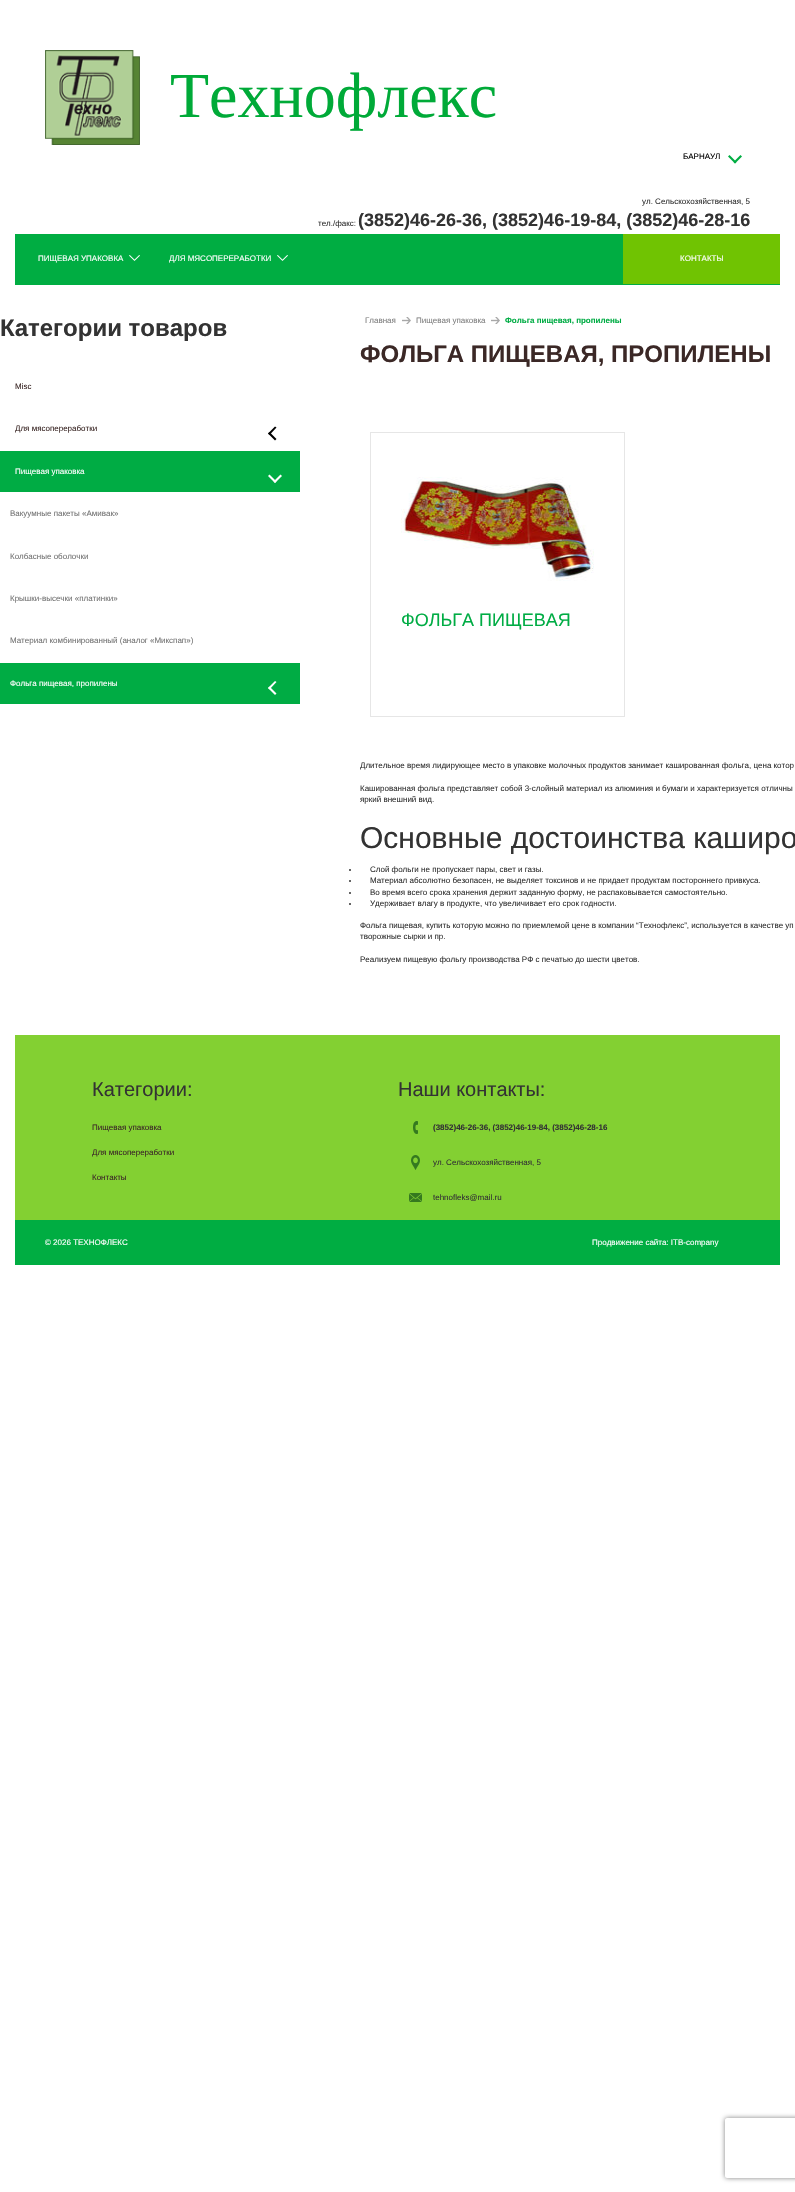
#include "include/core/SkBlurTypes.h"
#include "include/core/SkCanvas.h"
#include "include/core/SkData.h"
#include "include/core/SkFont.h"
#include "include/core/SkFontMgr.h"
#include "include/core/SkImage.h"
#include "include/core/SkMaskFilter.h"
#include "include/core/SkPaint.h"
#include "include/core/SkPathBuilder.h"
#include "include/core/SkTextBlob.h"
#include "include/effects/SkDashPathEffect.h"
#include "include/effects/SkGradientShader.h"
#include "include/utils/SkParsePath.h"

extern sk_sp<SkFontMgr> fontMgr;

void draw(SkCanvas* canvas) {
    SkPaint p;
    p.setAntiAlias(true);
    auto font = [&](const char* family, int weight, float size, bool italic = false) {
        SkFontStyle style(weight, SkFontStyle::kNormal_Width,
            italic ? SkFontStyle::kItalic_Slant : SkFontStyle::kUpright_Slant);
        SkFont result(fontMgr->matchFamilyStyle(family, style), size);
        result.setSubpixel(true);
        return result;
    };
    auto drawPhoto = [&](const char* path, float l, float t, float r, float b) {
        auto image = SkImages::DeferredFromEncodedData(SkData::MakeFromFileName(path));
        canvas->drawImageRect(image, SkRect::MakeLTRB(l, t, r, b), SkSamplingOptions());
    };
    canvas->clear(0xFFFFFFFF);
    drawPhoto("media/1.png", 45, 50, 140, 145);
    auto font1 = font("Liberation Serif", 400, 64);
    p.setColor(0xFF00AA38);
    canvas->drawString("Технофлекс", 170, 117, font1, p);
    auto font2 = font("Liberation Sans", 400, 8);
    p.setColor(0xFF000000);
    canvas->drawString("БАРНАУЛ", 683, 159, font2, p);
    p.setColor(0xFF00AD42);
    canvas->drawPath(SkPathBuilder().moveTo(742, 156.5f).lineTo(735, 163.5f).lineTo(733.5f, 162).lineTo(740.5f, 155).close().detach(), p);
    canvas->drawPath(SkPathBuilder().moveTo(736.5f, 162).lineTo(735, 163.5f).lineTo(728, 156.5f).lineTo(729.5f, 155).close().detach(), p);
    p.setColor(0xFF333333);
    canvas->drawString("ул. Сельскохозяйственная, 5", 642, 204, font2, p);
    canvas->drawString("тел./факс:", 318, 226, font2, p);
    auto font3 = font("Liberation Sans", 700, 18);
    canvas->drawString("(3852)46-26-36, (3852)46-19-84, (3852)46-28-16", 358, 226, font3, p);
    p.setColor(0xFF00AD42);
    canvas->drawRect(SkRect::MakeLTRB(15, 234, 780, 285), p);
    drawPhoto("media/2.png", 129, 255, 140, 261);
    p.setColor(0xFFFFFFFF);
    canvas->drawString("ПИЩЕВАЯ УПАКОВКА", 38, 261, font2, p);
    drawPhoto("media/2.png", 277, 255, 288, 261);
    canvas->drawString("ДЛЯ МЯСОПЕРЕРАБОТКИ", 169, 261, font2, p);
    p.setColor(0xFF70C302);
    canvas->drawRect(SkRect::MakeLTRB(623, 234, 780, 284), p);
    p.setColor(0xFFFFFFFF);
    canvas->drawString("КОНТАКТЫ", 680, 261, font2, p);
    auto font4 = font("Liberation Sans", 700, 24);
    p.setColor(0xFF333333);
    canvas->drawString("Категории товаров", 0, 336, font4, p);
    p.setColor(0xFF3B2826);
    canvas->drawString("Misc", 15, 389, font2, p);
    canvas->drawString("Для мясопереработки", 15, 431, font2, p);
    p.setColor(0xFF000000);
    canvas->drawPath(SkPathBuilder().moveTo(275, 440.5f).lineTo(268, 433.5f).lineTo(269.5f, 432).lineTo(276.5f, 439).close().detach(), p);
    canvas->drawPath(SkPathBuilder().moveTo(269.5f, 435).lineTo(268, 433.5f).lineTo(275, 426.5f).lineTo(276.5f, 427.5f).close().detach(), p);
    p.setColor(0xFF00AC44);
    canvas->drawRect(SkRect::MakeLTRB(0, 451, 300, 492), p);
    p.setColor(0xFFFFFFFF);
    canvas->drawString("Пищевая упаковка", 15, 474, font2, p);
    canvas->drawPath(SkPathBuilder().moveTo(282, 476).lineTo(275, 483).lineTo(273.5f, 481.5f).lineTo(280.5f, 474.5f).close().detach(), p);
    canvas->drawPath(SkPathBuilder().moveTo(276.5f, 481.5f).lineTo(275, 483).lineTo(268, 476).lineTo(269.5f, 474.5f).close().detach(), p);
    p.setColor(0xFF737373);
    {
        const struct { const char* s; float x, y; } items[] = {
            {"Вакуумные пакеты «Амивак»", 10, 516},
            {"Колбасные оболочки", 10, 559},
            {"Крышки-высечки «платинки»", 10, 601},
            {"Материал комбинированный (аналог «Микспап»)", 10, 643},
        };
        for (auto [s, x, y] : items) {
            canvas->drawString(s, x, y, font2, p);
        }
    }
    p.setColor(0xFF00AC44);
    canvas->drawRect(SkRect::MakeLTRB(0, 663, 300, 704), p);
    p.setColor(0xFFFFFFFF);
    canvas->drawString("Фольга пищевая, пропилены", 10, 686, font2, p);
    canvas->drawPath(SkPathBuilder().moveTo(275, 695).lineTo(268, 688).lineTo(269.5f, 686.5f).lineTo(276.5f, 693.5f).close().detach(), p);
    canvas->drawPath(SkPathBuilder().moveTo(269.5f, 689.5f).lineTo(268, 688).lineTo(275, 681).lineTo(276.5f, 682).close().detach(), p);
    drawPhoto("media/3.png", 402, 317, 411, 324);
    p.setColor(0xFF808080);
    canvas->drawString("Главная", 365, 323, font2, p);
    drawPhoto("media/3.png", 491, 317, 500, 324);
    canvas->drawString("Пищевая упаковка", 416, 323, font2, p);
    auto font5 = font("Liberation Sans", 700, 8);
    p.setColor(0xFF00AC44);
    canvas->drawString("Фольга пищевая, пропилены", 505, 323, font5, p);
    p.setColor(0xFF3B2826);
    canvas->drawString("ФОЛЬГА ПИЩЕВАЯ, ПРОПИЛЕНЫ", 360, 362, font4, p);
    p.setStyle(SkPaint::kStroke_Style);
    p.setStrokeWidth(1);
    p.setColor(0xFFE6E6E6);
    canvas->drawRect(SkRect::MakeLTRB(370.5f, 432.5f, 624.5f, 716.5f), p);
    drawPhoto("media/4.png", 401, 477, 594, 581);
    auto font6 = font("Liberation Sans", 400, 18);
    p.setStyle(SkPaint::kFill_Style);
    p.setColor(0xFF00AC44);
    canvas->drawString("ФОЛЬГА ПИЩЕВАЯ", 401, 626, font6, p);
    p.setColor(0xFF333333);
    {
        const struct { const char* s; float x, y; } items[] = {
            {"Длительное время лидирующее место в упаковке молочных продуктов занимает кашированная фольга, цена котор", 360, 768},
            {"Кашированная фольга представляет собой 3-слойный материал из алюминия и бумаги и характеризуется отличны", 360, 791},
            {"яркий внешний вид.", 360, 802},
        };
        for (auto [s, x, y] : items) {
            canvas->drawString(s, x, y, font2, p);
        }
    }
    auto font7 = font("Liberation Sans", 400, 30);
    canvas->drawString("Основные достоинства каширо", 360, 848, font7, p);
    canvas->drawCircle(350, 870, 1, p);
    canvas->drawString("Слой фольги не пропускает пары, свет и газы.", 370, 872, font2, p);
    canvas->drawCircle(350, 881, 1, p);
    canvas->drawString("Материал абсолютно безопасен, не выделяет токсинов и не придает продуктам постороннего привкуса.", 370, 883, font2, p);
    canvas->drawCircle(350, 893, 1, p);
    canvas->drawString("Во время всего срока хранения держит заданную форму, не распаковывается самостоятельно.", 370, 895, font2, p);
    canvas->drawCircle(350, 904, 1, p);
    {
        const struct { const char* s; float x, y; } items[] = {
            {"Удерживает влагу в продукте, что увеличивает его срок годности.", 370, 906},
            {"Фольга пищевая, купить которую можно по приемлемой цене в компании “Технофлекс”, используется в качестве уп", 360, 928},
            {"творожные сырки и пр.", 360, 939},
            {"Реализуем пищевую фольгу производства РФ с печатью до шести цветов.", 360, 962},
        };
        for (auto [s, x, y] : items) {
            canvas->drawString(s, x, y, font2, p);
        }
    }
    p.setColor(0xFF83D032);
    canvas->drawRect(SkRect::MakeLTRB(15, 1035, 780, 1220), p);
    auto font8 = font("Liberation Sans", 400, 20);
    p.setColor(0xFF333333);
    canvas->drawString("Категории:", 92, 1096, font8, p);
    p.setColor(0xFF3B2826);
    {
        const struct { const char* s; float x, y; } items[] = {
            {"Пищевая упаковка", 92, 1130},
            {"Для мясопереработки", 92, 1155},
            {"Контакты", 92, 1180},
        };
        for (auto [s, x, y] : items) {
            canvas->drawString(s, x, y, font2, p);
        }
    }
    p.setColor(0xFF333333);
    canvas->drawString("Наши контакты:", 398, 1096, font8, p);
    drawPhoto("media/5.png", 413, 1121, 418, 1134);
    canvas->drawString("(3852)46-26-36, (3852)46-19-84, (3852)46-28-16", 433, 1130, font5, p);
    drawPhoto("media/6.png", 411, 1155, 420, 1170);
    canvas->drawString("ул. Сельскохозяйственная, 5", 433, 1165, font2, p);
    drawPhoto("media/7.png", 409, 1193, 422, 1202);
    canvas->drawString("tehnofleks@mail.ru", 433, 1200, font2, p);
    p.setColor(0xFF00AD42);
    canvas->drawRect(SkRect::MakeLTRB(15, 1220, 780, 1265), p);
    p.setColor(0xFFFFFFFF);
    canvas->drawString("© 2026 ТЕХНОФЛЕКС", 45, 1245, font2, p);
    canvas->drawString("Продвижение сайта: ITB-company", 592, 1245, font2, p);
    canvas->save();
    canvas->clipPath(SkPathBuilder(SkPathFillType::kEvenOdd).moveTo(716, 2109).lineTo(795, 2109).lineTo(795, 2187).lineTo(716, 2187).close().moveTo(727, 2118).lineTo(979, 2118).cubicTo(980, 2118, 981, 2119, 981, 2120).lineTo(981, 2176).cubicTo(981, 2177, 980, 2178, 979, 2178).lineTo(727, 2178).cubicTo(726, 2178, 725, 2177, 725, 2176).lineTo(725, 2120).cubicTo(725, 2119, 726, 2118, 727, 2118).close().detach(), true);
    p.setColor(0xFF808080);
    p.setMaskFilter(SkMaskFilter::MakeBlur(kNormal_SkBlurStyle, 2.5f));
    canvas->drawRoundRect(SkRect::MakeLTRB(725, 2118, 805, 2178), 2, 2, p);
    p.setMaskFilter(nullptr);
    canvas->restore();
}
